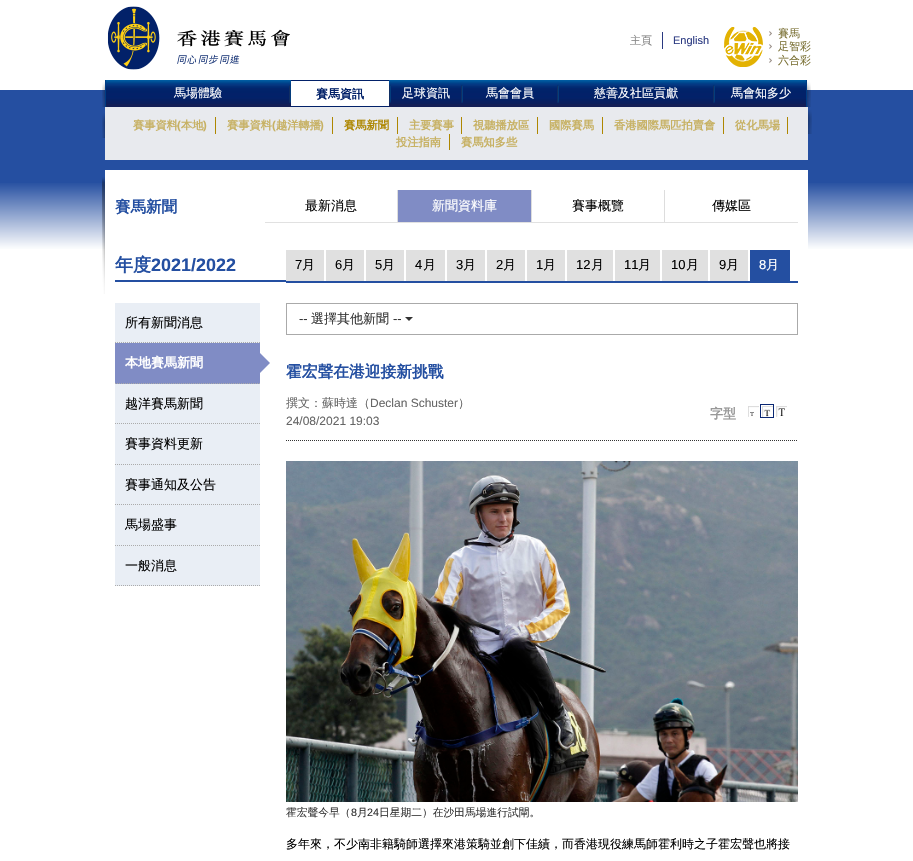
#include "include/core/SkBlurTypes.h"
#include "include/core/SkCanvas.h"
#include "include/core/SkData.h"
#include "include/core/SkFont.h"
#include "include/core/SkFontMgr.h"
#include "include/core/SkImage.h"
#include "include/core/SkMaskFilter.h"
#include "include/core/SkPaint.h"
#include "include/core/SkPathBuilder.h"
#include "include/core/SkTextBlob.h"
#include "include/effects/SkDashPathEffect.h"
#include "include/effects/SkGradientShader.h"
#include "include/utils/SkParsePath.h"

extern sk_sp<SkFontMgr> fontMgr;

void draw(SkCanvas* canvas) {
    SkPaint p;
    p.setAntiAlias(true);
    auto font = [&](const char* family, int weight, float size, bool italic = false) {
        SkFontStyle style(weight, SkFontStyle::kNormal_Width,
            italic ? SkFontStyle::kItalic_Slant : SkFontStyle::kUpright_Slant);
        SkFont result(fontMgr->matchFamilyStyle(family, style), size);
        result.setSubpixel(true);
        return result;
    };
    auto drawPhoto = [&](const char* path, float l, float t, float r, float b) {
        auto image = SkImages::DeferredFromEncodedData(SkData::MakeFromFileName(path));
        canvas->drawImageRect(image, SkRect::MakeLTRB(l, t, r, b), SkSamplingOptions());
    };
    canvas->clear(0xFFFFFFFF);
    drawPhoto("media/1.png", 0, 90, 913, 249);
    drawPhoto("media/2.png", 107, 6, 290, 70);
    auto font1 = font("WenQuanYi Zen Hei", 500, 11);
    p.setColor(0xFF848484);
    canvas->drawString("主頁", 630, 44, font1, p);
    p.setColor(0xFF2A3981);
    canvas->drawRect(SkRect::MakeLTRB(662, 32, 663, 49), p);
    auto font2 = font("Liberation Sans", 400, 11);
    canvas->drawString("English", 673, 44, font2, p);
    drawPhoto("media/3.png", 724, 27, 763, 67);
    drawPhoto("media/4.png", 769, 31, 772, 36);
    p.setColor(0xFF7B7135);
    canvas->drawString("賽馬", 778, 37, font1, p);
    drawPhoto("media/4.png", 769, 44, 772, 49);
    canvas->drawString("足智彩", 778, 50, font1, p);
    drawPhoto("media/4.png", 769, 58, 772, 63);
    canvas->drawString("六合彩", 778, 64, font1, p);
    drawPhoto("media/5.png", 102, 82, 105, 107);
    p.setColor(0xFF003C84);
    canvas->drawRect(SkRect::MakeLTRB(105, 80, 106, 107), p);
    drawPhoto("media/6.png", 106, 80, 289, 107);
    auto font3 = font("WenQuanYi Zen Hei", 500, 12);
    p.setColor(0xFFFFFFFF);
    canvas->drawString("馬場體驗", 174, 97, font3, p);
    drawPhoto("media/7.png", 289, 80, 291, 107);
    {
        const struct { float l, t, r, b; SkColor color; } items[] = {
            {291, 90, 389, 106, 0xFFFFFFFF},
            {291, 80, 389, 81, 0xFF022169},
            {291, 106, 389, 107, 0xFF022169},
        };
        for (auto [l, t, r, b, color] : items) {
            p.setColor(color);
            canvas->drawRect(SkRect::MakeLTRB(l, t, r, b), p);
        }
    }
    auto font4 = font("WenQuanYi Zen Hei", 700, 12);
    canvas->drawString("賽馬資訊", 316, 98, font4, p);
    drawPhoto("media/7.png", 389, 80, 391, 107);
    drawPhoto("media/8.png", 391, 80, 461, 107);
    p.setColor(0xFFFFFFFF);
    canvas->drawString("足球資訊", 402, 97, font3, p);
    drawPhoto("media/7.png", 461, 80, 463, 107);
    drawPhoto("media/9.png", 463, 80, 557, 107);
    canvas->drawString("馬會會員", 486, 97, font3, p);
    drawPhoto("media/7.png", 557, 80, 559, 107);
    drawPhoto("media/10.png", 559, 80, 713, 107);
    canvas->drawString("慈善及社區貢獻", 594, 97, font3, p);
    drawPhoto("media/7.png", 713, 80, 715, 107);
    p.setColor(0xFF003C84);
    canvas->drawRect(SkRect::MakeLTRB(806, 80, 807, 107), p);
    drawPhoto("media/11.png", 715, 80, 806, 107);
    p.setColor(0xFFFFFFFF);
    canvas->drawString("馬會知多少", 731, 97, font3, p);
    drawPhoto("media/12.png", 807, 82, 811, 107);
    drawPhoto("media/13.png", 102, 113, 105, 138);
    p.setColor(0xFFE8EAEE);
    canvas->drawRect(SkRect::MakeLTRB(105, 107, 808, 160), p);
    p.setColor(0xFFAE8701);
    canvas->drawRect(SkRect::MakeLTRB(215, 117, 216, 134), p);
    auto font5 = font("WenQuanYi Zen Hei", 700, 11.25f);
    p.setColor(0xFFC7B163);
    canvas->drawString("賽事資料", 133, 129, font5, p);
    auto font6 = font("Liberation Sans", 700, 11.25f);
    canvas->drawString("(", 177, 129, font6, p);
    canvas->drawString("本地", 181, 129, font5, p);
    canvas->drawString(")", 203, 129, font6, p);
    p.setColor(0xFFAE8701);
    canvas->drawRect(SkRect::MakeLTRB(332, 117, 333, 134), p);
    p.setColor(0xFFC7B163);
    canvas->drawString("賽事資料", 227, 129, font5, p);
    canvas->drawString("(", 272, 129, font6, p);
    canvas->drawString("越洋轉播", 276, 129, font5, p);
    canvas->drawString(")", 320, 129, font6, p);
    p.setColor(0xFFAE8701);
    canvas->drawRect(SkRect::MakeLTRB(397, 117, 398, 134), p);
    canvas->drawString("賽馬新聞", 344, 129, font5, p);
    canvas->drawRect(SkRect::MakeLTRB(461, 117, 462, 134), p);
    p.setColor(0xFFC7B163);
    canvas->drawString("主要賽事", 409, 129, font5, p);
    p.setColor(0xFFAE8701);
    canvas->drawRect(SkRect::MakeLTRB(537, 117, 538, 134), p);
    p.setColor(0xFFC7B163);
    canvas->drawString("視聽播放區", 473, 129, font5, p);
    p.setColor(0xFFAE8701);
    canvas->drawRect(SkRect::MakeLTRB(602, 117, 603, 134), p);
    p.setColor(0xFFC7B163);
    canvas->drawString("國際賽馬", 549, 129, font5, p);
    p.setColor(0xFFAE8701);
    canvas->drawRect(SkRect::MakeLTRB(723, 117, 724, 134), p);
    p.setColor(0xFFC7B163);
    canvas->drawString("香港國際馬匹拍賣會", 614, 129, font5, p);
    p.setColor(0xFFAE8701);
    canvas->drawRect(SkRect::MakeLTRB(787, 117, 788, 134), p);
    p.setColor(0xFFC7B163);
    canvas->drawString("從化馬場", 735, 129, font5, p);
    p.setColor(0xFFAE8701);
    canvas->drawRect(SkRect::MakeLTRB(449, 134, 450, 150), p);
    p.setColor(0xFFC7B163);
    canvas->drawString("投注指南", 396, 146, font5, p);
    canvas->drawString("賽馬知多些", 461, 146, font5, p);
    drawPhoto("media/14.png", 808, 109, 812, 134);
    drawPhoto("media/15.png", 102, 177, 105, 294);
    p.setColor(0xFFFFFFFF);
    canvas->drawRect(SkRect::MakeLTRB(105, 170, 808, 249), p);
    auto font7 = font("WenQuanYi Zen Hei", 700, 15.5f);
    p.setColor(0xFF244FA1);
    canvas->drawString("賽馬新聞", 115, 212, font7, p);
    p.setColor(0xFFDDDDDD);
    canvas->drawRect(SkRect::MakeLTRB(397, 190, 398, 223), p);
    p.setColor(0xFFE1E1E1);
    canvas->drawRect(SkRect::MakeLTRB(265, 222, 398, 223), p);
    auto font8 = font("WenQuanYi Zen Hei", 500, 13);
    p.setColor(0xFF000000);
    canvas->drawString("最新消息", 305, 210, font8, p);
    {
        const struct { float l, t, r, b; SkColor color; } items[] = {
            {398, 190, 531, 222, 0xFF808CC5},
            {531, 190, 532, 223, 0xFFDDDDDD},
            {398, 222, 532, 223, 0xFFE1E1E1},
        };
        for (auto [l, t, r, b, color] : items) {
            p.setColor(color);
            canvas->drawRect(SkRect::MakeLTRB(l, t, r, b), p);
        }
    }
    p.setColor(0xFFFFFFFF);
    canvas->drawString("新聞資料庫", 432, 210, font8, p);
    p.setColor(0xFFDDDDDD);
    canvas->drawRect(SkRect::MakeLTRB(664, 190, 665, 223), p);
    p.setColor(0xFFE1E1E1);
    canvas->drawRect(SkRect::MakeLTRB(532, 222, 798, 223), p);
    p.setColor(0xFF000000);
    canvas->drawString("賽事概覽", 572, 210, font8, p);
    canvas->drawString("傳媒區", 712, 210, font8, p);
    p.setColor(0xFF244FA1);
    canvas->drawRect(SkRect::MakeLTRB(115, 280, 286, 282), p);
    auto font9 = font("WenQuanYi Zen Hei", 700, 18);
    canvas->drawString("年度", 115, 271, font9, p);
    auto font10 = font("Liberation Sans", 700, 18);
    canvas->drawString("2021/2022", 151, 271, font10, p);
    canvas->drawRect(SkRect::MakeLTRB(286, 281, 798, 283), p);
    p.setColor(0xFFE0E0E0);
    canvas->drawRect(SkRect::MakeLTRB(286, 250, 324, 281), p);
    auto font11 = font("Liberation Sans", 400, 13);
    p.setColor(0xFF000000);
    canvas->drawString("7", 295, 269, font11, p);
    canvas->drawString("月", 302, 269, font8, p);
    p.setColor(0xFFE0E0E0);
    canvas->drawRect(SkRect::MakeLTRB(326, 250, 364, 281), p);
    p.setColor(0xFF000000);
    canvas->drawString("6", 335, 269, font11, p);
    canvas->drawString("月", 342, 269, font8, p);
    p.setColor(0xFFE0E0E0);
    canvas->drawRect(SkRect::MakeLTRB(366, 250, 404, 281), p);
    p.setColor(0xFF000000);
    canvas->drawString("5", 375, 269, font11, p);
    canvas->drawString("月", 382, 269, font8, p);
    p.setColor(0xFFE0E0E0);
    canvas->drawRect(SkRect::MakeLTRB(406, 250, 445, 281), p);
    p.setColor(0xFF000000);
    canvas->drawString("4", 415, 269, font11, p);
    canvas->drawString("月", 423, 269, font8, p);
    p.setColor(0xFFE0E0E0);
    canvas->drawRect(SkRect::MakeLTRB(447, 250, 485, 281), p);
    p.setColor(0xFF000000);
    canvas->drawString("3", 456, 269, font11, p);
    canvas->drawString("月", 463, 269, font8, p);
    p.setColor(0xFFE0E0E0);
    canvas->drawRect(SkRect::MakeLTRB(487, 250, 525, 281), p);
    p.setColor(0xFF000000);
    canvas->drawString("2", 496, 269, font11, p);
    canvas->drawString("月", 503, 269, font8, p);
    p.setColor(0xFFE0E0E0);
    canvas->drawRect(SkRect::MakeLTRB(527, 250, 565, 281), p);
    p.setColor(0xFF000000);
    canvas->drawString("1", 536, 269, font11, p);
    canvas->drawString("月", 543, 269, font8, p);
    p.setColor(0xFFE0E0E0);
    canvas->drawRect(SkRect::MakeLTRB(567, 250, 613, 281), p);
    p.setColor(0xFF000000);
    canvas->drawString("12", 576, 269, font11, p);
    canvas->drawString("月", 591, 269, font8, p);
    p.setColor(0xFFE0E0E0);
    canvas->drawRect(SkRect::MakeLTRB(615, 250, 660, 281), p);
    p.setColor(0xFF000000);
    canvas->drawString("11", 624, 269, font11, p);
    canvas->drawString("月", 638, 269, font8, p);
    p.setColor(0xFFE0E0E0);
    canvas->drawRect(SkRect::MakeLTRB(662, 250, 708, 281), p);
    p.setColor(0xFF000000);
    canvas->drawString("10", 671, 269, font11, p);
    canvas->drawString("月", 686, 269, font8, p);
    p.setColor(0xFFE0E0E0);
    canvas->drawRect(SkRect::MakeLTRB(710, 250, 748, 281), p);
    p.setColor(0xFF000000);
    canvas->drawString("9", 719, 269, font11, p);
    canvas->drawString("月", 726, 269, font8, p);
    p.setColor(0xFF244FA1);
    canvas->drawRect(SkRect::MakeLTRB(750, 250, 790, 281), p);
    p.setColor(0xFFFFFFFF);
    canvas->drawString("8", 759, 269, font11, p);
    canvas->drawString("月", 766, 269, font8, p);
    p.setColor(0xFFE9EEF5);
    canvas->drawRect(SkRect::MakeLTRB(115, 303, 260, 343), p);
    p.setStyle(SkPaint::kStroke_Style);
    p.setStrokeWidth(1);
    p.setColor(0xFFABABAB);
    p.setPathEffect(SkDashPathEffect::Make({{1, 1}}, 0));
    canvas->drawPath(SkPathBuilder().moveTo(115, 342.5f).lineTo(260, 342.5f).detach(), p);
    p.setPathEffect(nullptr);
    p.setStyle(SkPaint::kFill_Style);
    p.setColor(0xFF000000);
    canvas->drawString("所有新聞消息", 125, 327, font8, p);
    p.setColor(0xFF808CC5);
    canvas->drawRect(SkRect::MakeLTRB(115, 343, 260, 384), p);
    p.setStyle(SkPaint::kStroke_Style);
    p.setColor(0xFFABABAB);
    p.setPathEffect(SkDashPathEffect::Make({{1, 1}}, 0));
    canvas->drawPath(SkPathBuilder().moveTo(115, 383.5f).lineTo(260, 383.5f).detach(), p);
    p.setPathEffect(nullptr);
    auto font12 = font("WenQuanYi Zen Hei", 700, 13);
    p.setStyle(SkPaint::kFill_Style);
    p.setColor(0xFFFFFFFF);
    canvas->drawString("本地賽馬新聞", 125, 367, font12, p);
    p.setColor(0xFF808CC5);
    canvas->drawPath(SkPathBuilder().moveTo(260, 373).lineTo(260, 353).lineTo(270, 363).close().detach(), p);
    p.setColor(0xFFE9EEF5);
    canvas->drawRect(SkRect::MakeLTRB(115, 384, 260, 586), p);
    p.setStyle(SkPaint::kStroke_Style);
    p.setColor(0xFFABABAB);
    p.setPathEffect(SkDashPathEffect::Make({{1, 1}}, 0));
    canvas->drawPath(SkPathBuilder().moveTo(115, 423.5f).lineTo(260, 423.5f).detach(), p);
    p.setPathEffect(nullptr);
    p.setStyle(SkPaint::kFill_Style);
    p.setColor(0xFF000000);
    canvas->drawString("越洋賽馬新聞", 125, 408, font8, p);
    p.setStyle(SkPaint::kStroke_Style);
    p.setColor(0xFFABABAB);
    p.setPathEffect(SkDashPathEffect::Make({{1, 1}}, 0));
    canvas->drawPath(SkPathBuilder().moveTo(115, 464.5f).lineTo(260, 464.5f).detach(), p);
    p.setPathEffect(nullptr);
    p.setStyle(SkPaint::kFill_Style);
    p.setColor(0xFF000000);
    canvas->drawString("賽事資料更新", 125, 448, font8, p);
    p.setStyle(SkPaint::kStroke_Style);
    p.setColor(0xFFABABAB);
    p.setPathEffect(SkDashPathEffect::Make({{1, 1}}, 0));
    canvas->drawPath(SkPathBuilder().moveTo(115, 504.5f).lineTo(260, 504.5f).detach(), p);
    p.setPathEffect(nullptr);
    p.setStyle(SkPaint::kFill_Style);
    p.setColor(0xFF000000);
    canvas->drawString("賽事通知及公告", 125, 489, font8, p);
    p.setStyle(SkPaint::kStroke_Style);
    p.setColor(0xFFABABAB);
    p.setPathEffect(SkDashPathEffect::Make({{1, 1}}, 0));
    canvas->drawPath(SkPathBuilder().moveTo(115, 545.5f).lineTo(260, 545.5f).detach(), p);
    p.setPathEffect(nullptr);
    p.setStyle(SkPaint::kFill_Style);
    p.setColor(0xFF000000);
    canvas->drawString("馬場盛事", 125, 529, font8, p);
    p.setStyle(SkPaint::kStroke_Style);
    p.setColor(0xFFABABAB);
    p.setPathEffect(SkDashPathEffect::Make({{1, 1}}, 0));
    canvas->drawPath(SkPathBuilder().moveTo(115, 585.5f).lineTo(260, 585.5f).detach(), p);
    p.setPathEffect(nullptr);
    p.setStyle(SkPaint::kFill_Style);
    p.setColor(0xFF000000);
    canvas->drawString("一般消息", 125, 570, font8, p);
    p.setStyle(SkPaint::kStroke_Style);
    p.setColor(0xFFAAAAAA);
    canvas->drawRect(SkRect::MakeLTRB(286.5f, 303.5f, 797.5f, 334.5f), p);
    p.setStyle(SkPaint::kFill_Style);
    p.setColor(0xFF333333);
    canvas->drawString("--", 299, 323, font11, p);
    canvas->drawString("選擇其他新聞", 311, 323, font8, p);
    canvas->drawString("--", 393, 323, font11, p);
    canvas->drawPath(SkPathBuilder().moveTo(405, 317).lineTo(413, 317).lineTo(409, 321).close().detach(), p);
    p.setStyle(SkPaint::kStroke_Style);
    p.setPathEffect(SkDashPathEffect::Make({{1, 1}}, 0));
    canvas->drawPath(SkPathBuilder().moveTo(286, 440.5f).lineTo(798, 440.5f).detach(), p);
    p.setPathEffect(nullptr);
    auto font13 = font("WenQuanYi Zen Hei", 700, 15.75f);
    p.setStyle(SkPaint::kFill_Style);
    p.setColor(0xFF244FA1);
    canvas->drawString("霍宏聲在港迎接新挑戰", 286, 377, font13, p);
    p.setColor(0xFF666666);
    canvas->drawString("撰文：蘇時達（", 286, 407, font3, p);
    auto font14 = font("Liberation Sans", 400, 12);
    canvas->drawString("Declan Schuster", 370, 407, font14, p);
    canvas->drawString("）", 458, 407, font3, p);
    canvas->drawString("24/08/2021 19:03", 286, 425, font14, p);
    p.setColor(0xFF999999);
    canvas->drawString("字型", 710, 418, font12, p);
    drawPhoto("media/16.png", 748, 406, 759, 417);
    drawPhoto("media/17.png", 762, 406, 773, 417);
    p.setStyle(SkPaint::kStroke_Style);
    p.setColor(0xFF0A2773);
    canvas->drawRect(SkRect::MakeLTRB(760.5f, 404.5f, 773.5f, 417.5f), p);
    drawPhoto("media/18.png", 776, 406, 787, 417);
    drawPhoto("media/19.png", 286, 461, 798, 802);
    auto font15 = font("WenQuanYi Zen Hei", 500, 10.75f);
    p.setStyle(SkPaint::kFill_Style);
    p.setColor(0xFF333333);
    canvas->drawString("霍宏聲今早（", 286, 816, font15, p);
    auto font16 = font("Liberation Sans", 400, 10.75f);
    canvas->drawString("8", 351, 816, font16, p);
    canvas->drawString("月", 357, 816, font15, p);
    canvas->drawString("24", 367, 816, font16, p);
    canvas->drawString("日星期二）在沙田馬場進行試閘。", 379, 816, font15, p);
    p.setColor(0xFF000000);
    canvas->drawString("多年來，不少南非籍騎師選擇來港策騎並創下佳績，而香港現役練馬師霍利時之子霍宏聲也將接", 286, 848, font3, p);
}
